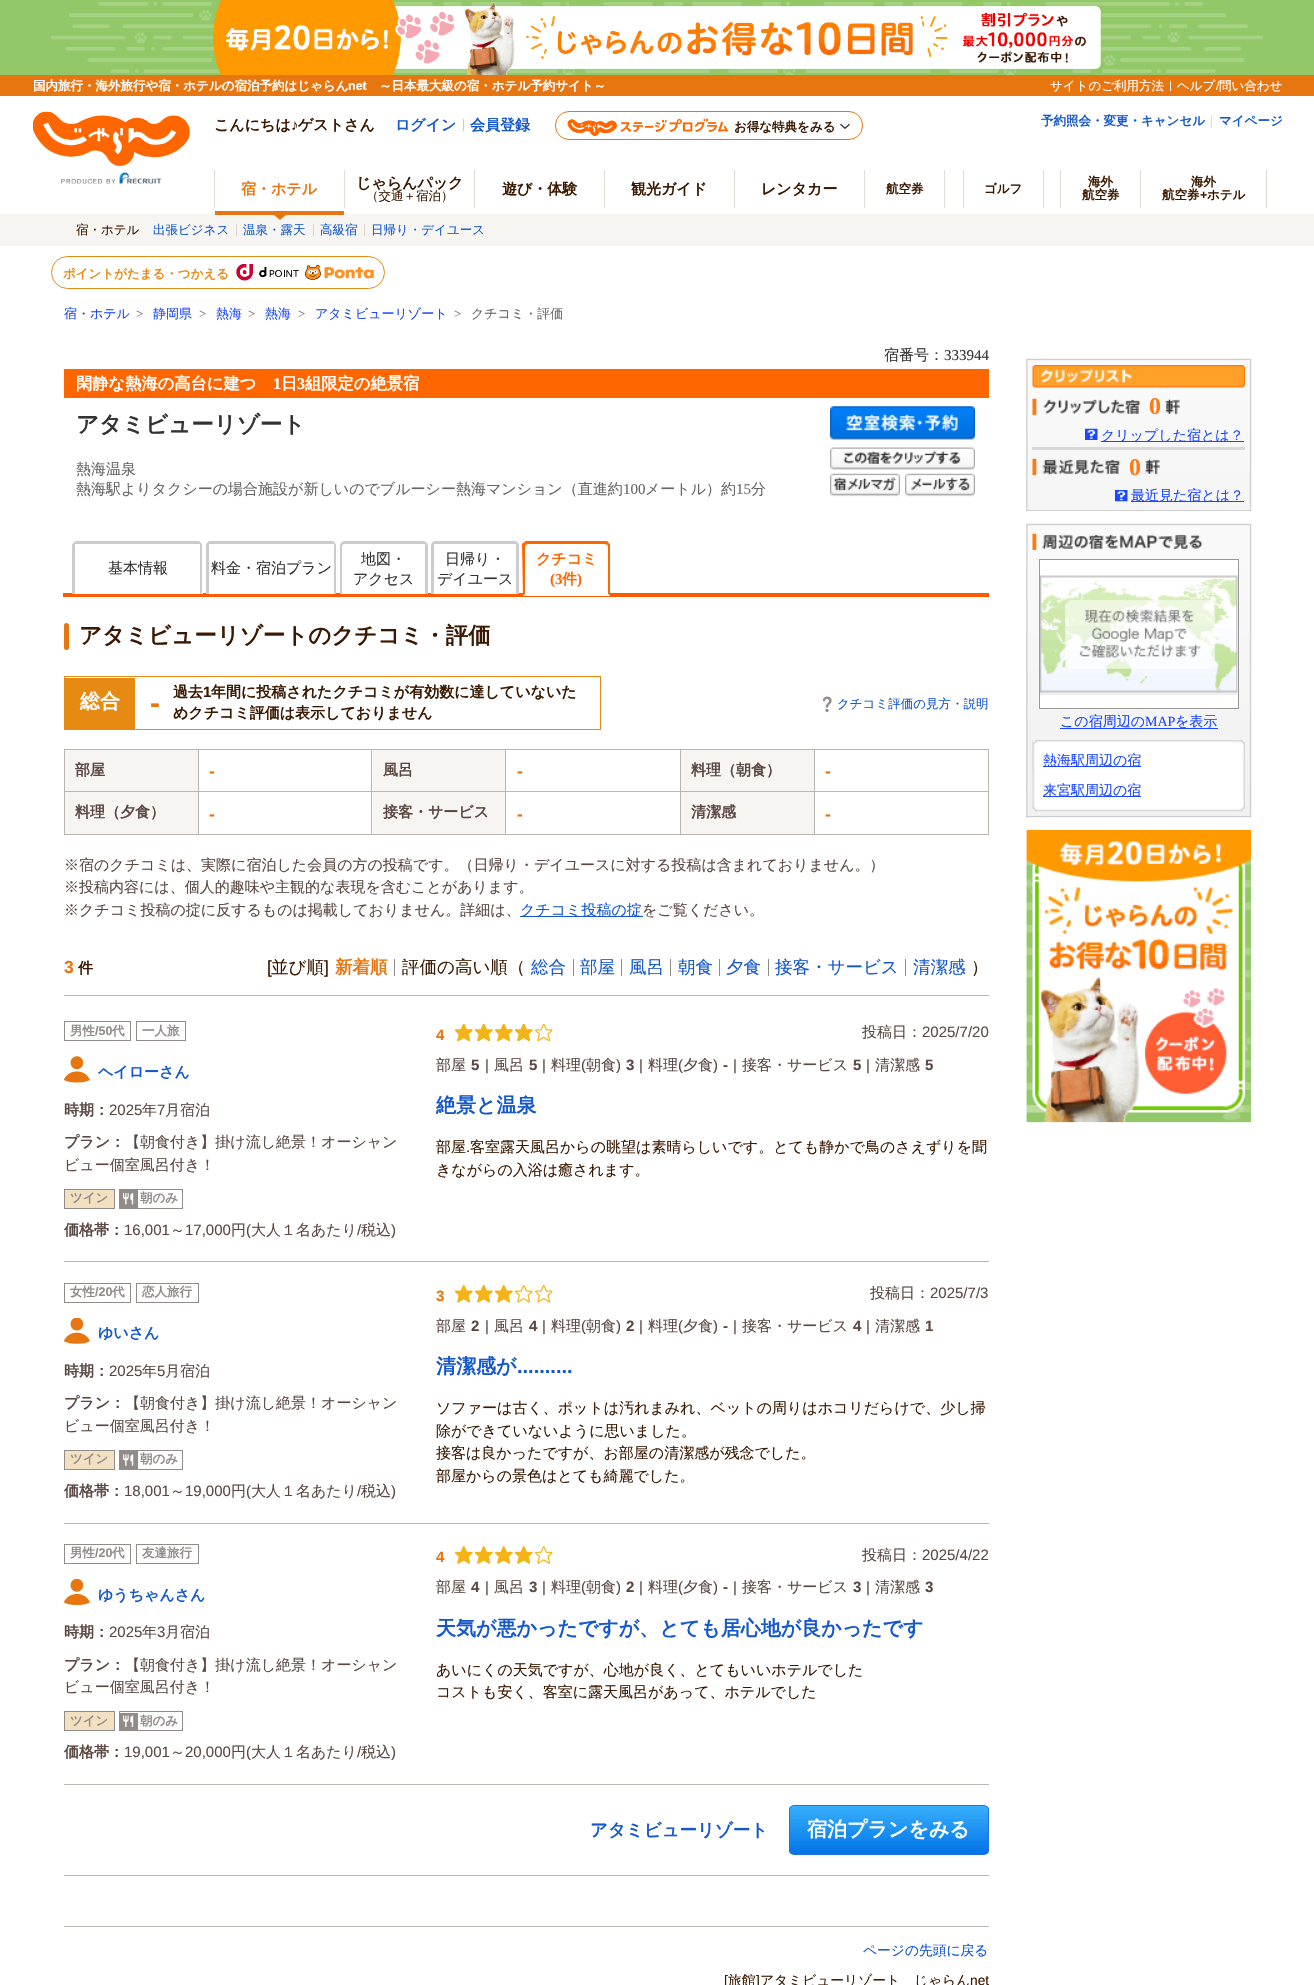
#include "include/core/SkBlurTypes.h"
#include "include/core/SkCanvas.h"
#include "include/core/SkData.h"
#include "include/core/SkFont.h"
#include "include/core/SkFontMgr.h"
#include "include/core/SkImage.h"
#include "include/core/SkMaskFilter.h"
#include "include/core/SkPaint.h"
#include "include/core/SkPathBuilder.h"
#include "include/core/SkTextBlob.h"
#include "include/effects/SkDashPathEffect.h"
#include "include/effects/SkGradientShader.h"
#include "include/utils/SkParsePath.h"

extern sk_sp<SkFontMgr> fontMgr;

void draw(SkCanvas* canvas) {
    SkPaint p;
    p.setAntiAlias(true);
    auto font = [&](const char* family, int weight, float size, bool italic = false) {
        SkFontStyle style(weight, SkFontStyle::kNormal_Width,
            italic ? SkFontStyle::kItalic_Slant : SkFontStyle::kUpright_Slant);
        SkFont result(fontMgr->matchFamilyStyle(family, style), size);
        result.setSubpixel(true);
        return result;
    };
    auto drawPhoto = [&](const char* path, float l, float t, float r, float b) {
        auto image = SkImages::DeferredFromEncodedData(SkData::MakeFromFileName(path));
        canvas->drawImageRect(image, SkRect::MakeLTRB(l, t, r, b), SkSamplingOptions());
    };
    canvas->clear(0xFFFFFFFF);
    p.setColor(0xFF93C869);
    canvas->drawRect(SkRect::MakeLTRB(0, 0, 1314, 75), p);
    drawPhoto("media/1.png", 50, 0, 1263, 75);
    p.setColor(0xFFE77611);
    canvas->drawRect(SkRect::MakeLTRB(0, 75, 1314, 96), p);
    auto font1 = font("WenQuanYi Zen Hei", 700, 12.5f);
    p.setColor(0xFFFFFFFF);
    canvas->drawString("国内旅行・海外旅行や宿・ホテルの宿泊予約はじゃらん", 33, 90, font1, p);
    auto font2 = font("Liberation Sans", 700, 12.5f);
    canvas->drawString("net", 348, 90, font2, p);
    canvas->drawString("～日本最大級の宿・ホテル予約サイト～", 379, 90, font1, p);
    auto font3 = font("WenQuanYi Zen Hei", 500, 12.5f);
    canvas->drawString("サイトのご利用方法", 1050, 90, font3, p);
    canvas->drawRect(SkRect::MakeLTRB(1170, 81, 1171, 91), p);
    canvas->drawString("ヘルプ", 1177, 90, font3, p);
    auto font4 = font("Liberation Sans", 400, 12.5f);
    canvas->drawString("/", 1216, 90, font4, p);
    canvas->drawString("問い合わせ", 1219, 90, font3, p);
    drawPhoto("media/2.png", 33, 111, 190, 184);
    auto font5 = font("WenQuanYi Zen Hei", 700, 15);
    p.setColor(0xFF3B1800);
    canvas->drawString("こんにちは", 214, 130, font5, p);
    auto font6 = font("Liberation Sans", 700, 15);
    canvas->drawString("♪", 291, 130, font6, p);
    canvas->drawString("ゲストさん", 298, 130, font5, p);
    p.setColor(0xFF1558CE);
    canvas->drawString("ログイン", 395, 130, font5, p);
    p.setColor(0xFFCCCCCC);
    canvas->drawRect(SkRect::MakeLTRB(463, 119, 464, 131), p);
    p.setColor(0xFF1558CE);
    canvas->drawString("会員登録", 470, 130, font5, p);
    p.setStyle(SkPaint::kStroke_Style);
    p.setStrokeWidth(1);
    p.setColor(0xFFE77611);
    canvas->drawRoundRect(SkRect::MakeLTRB(555.5f, 111.5f, 862.5f, 139.5f), 13.5f, 13.5f, p);
    drawPhoto("media/3.png", 567, 118, 728, 137);
    p.setStyle(SkPaint::kFill_Style);
    p.setColor(0xFF3B1800);
    canvas->drawString("お得な特典をみる", 734, 131, font1, p);
    drawPhoto("media/4.png", 840, 124, 850, 129);
    p.setColor(0xFF1558CE);
    canvas->drawString("予約照会・変更・キャンセル", 1041, 125, font1, p);
    p.setColor(0xFFE0DBD7);
    canvas->drawRect(SkRect::MakeLTRB(1211, 115, 1212, 128), p);
    p.setColor(0xFF1558CE);
    canvas->drawString("マイページ", 1219, 125, font1, p);
    p.setColor(0xFFE0DBD7);
    canvas->drawRect(SkRect::MakeLTRB(344, 170, 345, 208), p);
    canvas->drawRect(SkRect::MakeLTRB(214, 170, 215, 208), p);
    p.setColor(0xFFE77611);
    canvas->drawString("宿・ホテル", 241, 194, font5, p);
    p.setColor(0xFFF7F5F2);
    canvas->drawRect(SkRect::MakeLTRB(0, 214, 1314, 246), p);
    p.setColor(0xFFE77611);
    canvas->drawRect(SkRect::MakeLTRB(215, 211, 344, 215), p);
    canvas->drawPath(SkPathBuilder().moveTo(274, 215).lineTo(286, 215).lineTo(280, 220).close().detach(), p);
    p.setColor(0xFFE0DBD7);
    canvas->drawRect(SkRect::MakeLTRB(474, 170, 475, 208), p);
    p.setColor(0xFF3B1800);
    canvas->drawString("じゃらんパック", 356, 188, font5, p);
    canvas->drawString("（交通＋宿泊）", 366, 200, font3, p);
    p.setColor(0xFFE0DBD7);
    canvas->drawRect(SkRect::MakeLTRB(604, 170, 605, 208), p);
    p.setColor(0xFF3B1800);
    canvas->drawString("遊び・体験", 502, 194, font5, p);
    p.setColor(0xFFE0DBD7);
    canvas->drawRect(SkRect::MakeLTRB(734, 170, 735, 208), p);
    p.setColor(0xFF3B1800);
    canvas->drawString("観光ガイド", 631, 194, font5, p);
    p.setColor(0xFFE0DBD7);
    canvas->drawRect(SkRect::MakeLTRB(864, 170, 865, 208), p);
    p.setColor(0xFF3B1800);
    canvas->drawString("レンタカー", 761, 194, font5, p);
    p.setColor(0xFFE0DBD7);
    canvas->drawRect(SkRect::MakeLTRB(944, 170, 945, 208), p);
    p.setColor(0xFF3B1800);
    canvas->drawString("航空券", 886, 193, font1, p);
    p.setColor(0xFFE0DBD7);
    canvas->drawRect(SkRect::MakeLTRB(1043, 170, 1044, 208), p);
    canvas->drawRect(SkRect::MakeLTRB(963, 170, 964, 208), p);
    p.setColor(0xFF3B1800);
    canvas->drawString("ゴルフ", 984, 193, font1, p);
    p.setColor(0xFFE0DBD7);
    canvas->drawRect(SkRect::MakeLTRB(1140, 170, 1141, 208), p);
    canvas->drawRect(SkRect::MakeLTRB(1060, 170, 1061, 208), p);
    p.setColor(0xFF3B1800);
    canvas->drawString("海外", 1088, 186, font1, p);
    canvas->drawString("航空券", 1082, 199, font1, p);
    p.setColor(0xFFE0DBD7);
    canvas->drawRect(SkRect::MakeLTRB(1266, 170, 1267, 208), p);
    p.setColor(0xFF3B1800);
    canvas->drawString("海外", 1191, 186, font1, p);
    canvas->drawString("航空券", 1162, 199, font1, p);
    canvas->drawString("+", 1200, 199, font2, p);
    canvas->drawString("ホテル", 1207, 199, font1, p);
    canvas->drawString("宿・ホテル", 76, 234, font3, p);
    p.setColor(0xFF1558CE);
    canvas->drawString("出張ビジネス", 153, 234, font3, p);
    p.setColor(0xFFD8D4D1);
    canvas->drawRect(SkRect::MakeLTRB(236, 224, 237, 236), p);
    p.setColor(0xFF1558CE);
    canvas->drawString("温泉・露天", 243, 234, font3, p);
    p.setColor(0xFFD8D4D1);
    canvas->drawRect(SkRect::MakeLTRB(313, 224, 314, 236), p);
    p.setColor(0xFF1558CE);
    canvas->drawString("高級宿", 320, 234, font3, p);
    p.setColor(0xFFD8D4D1);
    canvas->drawRect(SkRect::MakeLTRB(364, 224, 365, 236), p);
    p.setColor(0xFF1558CE);
    canvas->drawString("日帰り・デイユース", 371, 234, font3, p);
    p.setStyle(SkPaint::kStroke_Style);
    p.setColor(0xFFE78A13);
    canvas->drawRoundRect(SkRect::MakeLTRB(51.5f, 256.5f, 384.5f, 288.5f), 16, 16, p);
    p.setStyle(SkPaint::kFill_Style);
    canvas->drawString("ポイントがたまる・つかえる", 63, 278, font1, p);
    drawPhoto("media/5.png", 236, 264, 299, 281);
    drawPhoto("media/6.png", 305, 265, 374, 280);
    auto font7 = font("WenQuanYi Zen Hei", 500, 13);
    p.setColor(0xFF1B47FF);
    canvas->drawString("宿・ホテル", 64, 318, font7, p);
    auto font8 = font("Liberation Serif", 400, 13);
    p.setColor(0xFF666666);
    canvas->drawString(">", 136, 318, font8, p);
    p.setColor(0xFF1B47FF);
    canvas->drawString("静岡県", 153, 318, font7, p);
    p.setColor(0xFF666666);
    canvas->drawString(">", 199, 318, font8, p);
    p.setColor(0xFF1B47FF);
    canvas->drawString("熱海", 216, 318, font7, p);
    p.setColor(0xFF666666);
    canvas->drawString(">", 248, 318, font8, p);
    p.setColor(0xFF1B47FF);
    canvas->drawString("熱海", 265, 318, font7, p);
    p.setColor(0xFF666666);
    canvas->drawString(">", 298, 318, font8, p);
    p.setColor(0xFF1B47FF);
    canvas->drawString("アタミビューリゾート", 315, 318, font7, p);
    p.setColor(0xFF666666);
    canvas->drawString(">", 454, 318, font8, p);
    canvas->drawString("クチコミ・評価", 471, 318, font7, p);
    auto font9 = font("WenQuanYi Zen Hei", 500, 15);
    p.setColor(0xFF333333);
    canvas->drawString("宿番号：", 884, 360, font9, p);
    auto font10 = font("Liberation Serif", 400, 15);
    canvas->drawString("333944", 944, 360, font10, p);
    p.setColor(0xFFFF6600);
    canvas->drawRect(SkRect::MakeLTRB(64, 369, 989, 398), p);
    auto font11 = font("WenQuanYi Zen Hei", 700, 16.25f);
    p.setColor(0xFFFFFFFF);
    canvas->drawString("閑静な熱海の高台に建つ", 76, 389, font11, p);
    auto font12 = font("Liberation Serif", 700, 16.25f);
    canvas->drawString("1", 273, 389, font12, p);
    canvas->drawString("日", 281, 389, font11, p);
    canvas->drawString("3", 297, 389, font12, p);
    canvas->drawString("組限定の絶景宿", 305, 389, font11, p);
    auto font13 = font("WenQuanYi Zen Hei", 700, 22.5f);
    p.setColor(0xFF333333);
    canvas->drawString("アタミビューリゾート", 76, 432, font13, p);
    p.setColor(0xFF666666);
    canvas->drawString("熱海温泉", 76, 474, font9, p);
    canvas->drawString("熱海駅よりタクシーの場合施設が新しいのでブルーシー熱海マンション（直進約", 76, 494, font9, p);
    canvas->drawString("100", 623, 494, font10, p);
    canvas->drawString("メートル）約", 645, 494, font9, p);
    canvas->drawString("15", 736, 494, font10, p);
    canvas->drawString("分", 751, 494, font9, p);
    drawPhoto("media/7.png", 830, 406, 975, 440);
    drawPhoto("media/8.png", 830, 447, 975, 470);
    drawPhoto("media/9.png", 830, 473, 900, 497);
    drawPhoto("media/10.png", 905, 473, 975, 497);
    p.setColor(0xFFFF5A00);
    canvas->drawRect(SkRect::MakeLTRB(63, 593, 989, 597), p);
    p.setColor(0xFFFFFFFF);
    canvas->drawPath(SkPathBuilder().moveTo(78, 541).lineTo(198, 541).cubicTo(201, 541, 203, 543, 203, 546).lineTo(203, 594).lineTo(73, 594).lineTo(73, 546).cubicTo(73, 543, 75, 541, 78, 541).close().detach(), p);
    p.setColor(0xFFCCCCCC);
    canvas->drawPath(SkPathBuilder(SkPathFillType::kEvenOdd).moveTo(78, 541).lineTo(198, 541).cubicTo(200, 541, 202, 543, 202, 546).lineTo(202, 594).lineTo(72, 594).lineTo(72, 546).cubicTo(72, 543, 75, 541, 78, 541).close().moveTo(78, 544).lineTo(198, 544).cubicTo(199, 544, 200, 545, 200, 546).lineTo(200, 594).lineTo(75, 594).lineTo(75, 546).cubicTo(75, 545, 76, 544, 78, 544).close().detach(), p);
    p.setColor(0xFFFFFFFF);
    canvas->drawRect(SkRect::MakeLTRB(75, 544, 200, 546), p);
    p.setColor(0xFF333333);
    canvas->drawString("基本情報", 108, 573, font9, p);
    p.setColor(0xFFCCCCCC);
    canvas->drawPath(SkPathBuilder(SkPathFillType::kEvenOdd).moveTo(211, 541).lineTo(331, 541).cubicTo(334, 541, 336, 543, 336, 546).lineTo(336, 594).lineTo(206, 594).lineTo(206, 546).cubicTo(206, 543, 208, 541, 211, 541).close().moveTo(211, 544).lineTo(331, 544).cubicTo(333, 544, 334, 545, 334, 546).lineTo(334, 594).lineTo(209, 594).lineTo(209, 546).cubicTo(209, 545, 210, 544, 211, 544).close().detach(), p);
    p.setColor(0xFFFFFFFF);
    canvas->drawRect(SkRect::MakeLTRB(209, 544, 334, 594), p);
    p.setColor(0xFF333333);
    canvas->drawString("料金・宿泊プラン", 211, 573, font9, p);
    p.setColor(0xFFFFFFFF);
    canvas->drawPath(SkPathBuilder().moveTo(345, 541).lineTo(423, 541).cubicTo(426, 541, 428, 543, 428, 546).lineTo(428, 594).lineTo(340, 594).lineTo(340, 546).cubicTo(340, 543, 342, 541, 345, 541).close().detach(), p);
    p.setColor(0xFFCCCCCC);
    canvas->drawPath(SkPathBuilder(SkPathFillType::kEvenOdd).moveTo(345, 541).lineTo(422, 541).cubicTo(425, 541, 428, 543, 428, 546).lineTo(428, 594).lineTo(340, 594).lineTo(340, 546).cubicTo(340, 543, 342, 541, 345, 541).close().moveTo(345, 544).lineTo(422, 544).cubicTo(424, 544, 425, 545, 425, 546).lineTo(425, 594).lineTo(342, 594).lineTo(342, 546).cubicTo(342, 545, 344, 544, 345, 544).close().detach(), p);
    p.setColor(0xFFFFFFFF);
    canvas->drawRect(SkRect::MakeLTRB(343, 544, 425, 546), p);
    p.setColor(0xFF333333);
    canvas->drawString("地図・", 361, 564, font9, p);
    canvas->drawString("アクセス", 353, 584, font9, p);
    p.setColor(0xFFCCCCCC);
    canvas->drawPath(SkPathBuilder(SkPathFillType::kEvenOdd).moveTo(436, 541).lineTo(514, 541).cubicTo(517, 541, 519, 543, 519, 546).lineTo(519, 594).lineTo(431, 594).lineTo(431, 546).cubicTo(431, 543, 433, 541, 436, 541).close().moveTo(436, 544).lineTo(514, 544).cubicTo(515, 544, 516, 545, 516, 546).lineTo(516, 594).lineTo(434, 594).lineTo(434, 546).cubicTo(434, 545, 435, 544, 436, 544).close().detach(), p);
    p.setColor(0xFFFFFFFF);
    canvas->drawRect(SkRect::MakeLTRB(434, 544, 516, 594), p);
    p.setColor(0xFF333333);
    canvas->drawString("日帰り・", 445, 564, font9, p);
    canvas->drawString("デイユース", 437, 584, font9, p);
    p.setColor(0xFFFFFFFF);
    canvas->drawPath(SkPathBuilder().moveTo(528, 541).lineTo(605, 541).cubicTo(608, 541, 610, 543, 610, 546).lineTo(610, 596).lineTo(523, 596).lineTo(523, 546).cubicTo(523, 543, 525, 541, 528, 541).close().detach(), p);
    p.setColor(0xFFFF6600);
    canvas->drawPath(SkPathBuilder().moveTo(528, 544).lineTo(526, 545).lineTo(524, 542).lineTo(526, 541).lineTo(607, 541).lineTo(609, 543).lineTo(607, 545).lineTo(605, 544).close().detach(), p);
    canvas->drawPath(SkPathBuilder().moveTo(610, 596).lineTo(610, 546).cubicTo(610, 545, 610, 543, 609, 543).lineTo(607, 545).lineTo(608, 546).lineTo(608, 594).close().detach(), p);
    p.setColor(0xFFFFFFFF);
    canvas->drawPath(SkPathBuilder().moveTo(610, 596).lineTo(523, 596).lineTo(525, 594).lineTo(608, 594).close().detach(), p);
    p.setColor(0xFFFF6600);
    canvas->drawPath(SkPathBuilder().moveTo(522, 544).lineTo(524, 542).lineTo(526, 545).lineTo(525, 546).lineTo(525, 594).lineTo(523, 596).close().detach(), p);
    canvas->drawString("クチコミ", 536, 564, font5, p);
    auto font14 = font("Liberation Serif", 700, 15);
    canvas->drawString("(3", 550, 584, font14, p);
    canvas->drawString("件", 562, 584, font5, p);
    canvas->drawString(")", 577, 584, font14, p);
    p.setColor(0xFFE77611);
    canvas->drawRoundRect(SkRect::MakeLTRB(64, 623, 69, 650), 2.5f, 2.5f, p);
    p.setColor(0xFF3B1800);
    canvas->drawString("アタミビューリゾートのクチコミ・評価", 79, 643, font13, p);
    p.setStyle(SkPaint::kStroke_Style);
    p.setColor(0xFFE78A13);
    canvas->drawRect(SkRect::MakeLTRB(64.5f, 676.5f, 600.5f, 729.5f), p);
    p.setStyle(SkPaint::kFill_Style);
    canvas->drawRect(SkRect::MakeLTRB(65, 678, 135, 729), p);
    auto font15 = font("WenQuanYi Zen Hei", 700, 20);
    p.setColor(0xFFFFFFFF);
    canvas->drawString("総合", 80, 708, font15, p);
    auto font16 = font("Liberation Sans", 700, 30);
    p.setColor(0xFFE77611);
    canvas->drawString("-", 150, 713, font16, p);
    p.setColor(0xFF3B1800);
    canvas->drawString("過去", 173, 697, font5, p);
    canvas->drawString("1", 203, 697, font6, p);
    canvas->drawString("年間に投稿されたクチコミが有効数に達していないた", 211, 697, font5, p);
    canvas->drawString("めクチコミ評価は表示しておりません", 173, 718, font5, p);
    drawPhoto("media/11.png", 823, 696, 832, 713);
    p.setColor(0xFF1558CE);
    canvas->drawString("クチコミ評価の見方・説明", 837, 708, font3, p);
    {
        const struct { float l, t, r, b; SkColor color; } items[] = {
            {680, 749, 989, 750, 0xFFBCB6B3},
            {680, 791, 989, 792, 0xFFBCB6B3},
            {988, 791, 989, 835, 0xFFBCB6B3},
            {814, 834, 989, 835, 0xFFBCB6B3},
            {814, 791, 815, 835, 0xFFBCB6B3},
            {680, 834, 815, 835, 0xFFBCB6B3},
            {680, 791, 681, 835, 0xFFBCB6B3},
            {371, 791, 681, 792, 0xFFBCB6B3},
            {680, 749, 681, 793, 0xFFBCB6B3},
            {371, 749, 681, 750, 0xFFBCB6B3},
            {505, 834, 681, 835, 0xFFBCB6B3},
            {505, 791, 506, 835, 0xFFBCB6B3},
            {371, 834, 506, 835, 0xFFBCB6B3},
            {371, 791, 372, 835, 0xFFBCB6B3},
            {64, 791, 373, 792, 0xFFBCB6B3},
            {371, 749, 372, 793, 0xFFBCB6B3},
            {64, 749, 373, 750, 0xFFBCB6B3},
            {988, 749, 989, 793, 0xFFBCB6B3},
            {65, 750, 198, 791, 0xFFF7F5F2},
            {198, 834, 373, 835, 0xFFBCB6B3},
            {198, 791, 199, 835, 0xFFBCB6B3},
            {198, 749, 199, 793, 0xFFBCB6B3},
            {64, 834, 199, 835, 0xFFBCB6B3},
            {64, 791, 65, 835, 0xFFBCB6B3},
            {64, 749, 65, 793, 0xFFBCB6B3},
        };
        for (auto [l, t, r, b, color] : items) {
            p.setColor(color);
            canvas->drawRect(SkRect::MakeLTRB(l, t, r, b), p);
        }
    }
    p.setColor(0xFF5B4843);
    canvas->drawString("部屋", 75, 775, font5, p);
    auto font17 = font("Liberation Sans", 700, 17.5f);
    p.setColor(0xFFE77611);
    canvas->drawString("-", 209, 777, font17, p);
    p.setColor(0xFFF7F5F2);
    canvas->drawRect(SkRect::MakeLTRB(373, 750, 505, 791), p);
    p.setColor(0xFFBCB6B3);
    canvas->drawRect(SkRect::MakeLTRB(505, 749, 506, 793), p);
    p.setColor(0xFF5B4843);
    canvas->drawString("風呂", 383, 775, font5, p);
    p.setColor(0xFFE77611);
    canvas->drawString("-", 517, 777, font17, p);
    p.setColor(0xFFF7F5F2);
    canvas->drawRect(SkRect::MakeLTRB(681, 750, 814, 791), p);
    p.setColor(0xFFBCB6B3);
    canvas->drawRect(SkRect::MakeLTRB(814, 749, 815, 793), p);
    p.setColor(0xFF5B4843);
    canvas->drawString("料理（朝食）", 691, 775, font5, p);
    p.setColor(0xFFE77611);
    canvas->drawString("-", 825, 777, font17, p);
    p.setColor(0xFFF7F5F2);
    canvas->drawRect(SkRect::MakeLTRB(65, 792, 198, 834), p);
    p.setColor(0xFF5B4843);
    canvas->drawString("料理（夕食）", 75, 817, font5, p);
    p.setColor(0xFFE77611);
    canvas->drawString("-", 209, 820, font17, p);
    p.setColor(0xFFF7F5F2);
    canvas->drawRect(SkRect::MakeLTRB(373, 792, 505, 834), p);
    p.setColor(0xFF5B4843);
    canvas->drawString("接客・サービス", 383, 817, font5, p);
    p.setColor(0xFFE77611);
    canvas->drawString("-", 517, 820, font17, p);
    p.setColor(0xFFF7F5F2);
    canvas->drawRect(SkRect::MakeLTRB(681, 792, 814, 834), p);
    p.setColor(0xFF5B4843);
    canvas->drawString("清潔感", 691, 817, font5, p);
    p.setColor(0xFFE77611);
    canvas->drawString("-", 825, 820, font17, p);
    p.setColor(0xFF5B4843);
    {
        const struct { const char* s; float x, y; } items[] = {
            {"※宿のクチコミは、実際に宿泊した会員の方の投稿です。（日帰り・デイユースに対する投稿は含まれておりません。）", 64, 870},
            {"※投稿内容には、個人的趣味や主観的な表現を含むことがあります。", 64, 892},
            {"※クチコミ投稿の掟に反するものは掲載しておりません。詳細は、", 64, 915},
        };
        for (auto [s, x, y] : items) {
            canvas->drawString(s, x, y, font9, p);
        }
    }
    p.setColor(0xFF1558CE);
    canvas->drawRect(SkRect::MakeLTRB(520, 916, 643, 917), p);
    canvas->drawString("クチコミ投稿の掟", 520, 915, font9, p);
    p.setColor(0xFF5B4843);
    canvas->drawString("をご覧ください。", 642, 915, font9, p);
    p.setColor(0xFFBCB6B3);
    canvas->drawRect(SkRect::MakeLTRB(64, 995, 989, 996), p);
    p.setColor(0xFFE77611);
    canvas->drawString("3", 64, 973, font17, p);
    p.setColor(0xFF3B1800);
    canvas->drawString("件", 78, 973, font5, p);
    auto font18 = font("Liberation Sans", 400, 17.5f);
    canvas->drawString("[", 267, 973, font18, p);
    auto font19 = font("WenQuanYi Zen Hei", 500, 17.5f);
    canvas->drawString("並び順", 271, 973, font19, p);
    canvas->drawString("]", 324, 973, font18, p);
    auto font20 = font("WenQuanYi Zen Hei", 700, 17.5f);
    p.setColor(0xFFE77611);
    canvas->drawString("新着順", 335, 973, font20, p);
    p.setColor(0xFF918B8A);
    canvas->drawRect(SkRect::MakeLTRB(394, 959, 395, 976), p);
    p.setColor(0xFF3B1800);
    canvas->drawString("評価の高い順（", 402, 973, font19, p);
    p.setColor(0xFF1558CE);
    canvas->drawString("総合", 531, 973, font19, p);
    p.setColor(0xFF918B8A);
    canvas->drawRect(SkRect::MakeLTRB(573, 959, 574, 976), p);
    p.setColor(0xFF1558CE);
    canvas->drawString("部屋", 580, 973, font19, p);
    p.setColor(0xFF918B8A);
    canvas->drawRect(SkRect::MakeLTRB(621, 959, 622, 976), p);
    p.setColor(0xFF1558CE);
    canvas->drawString("風呂", 629, 973, font19, p);
    p.setColor(0xFF918B8A);
    canvas->drawRect(SkRect::MakeLTRB(670, 959, 671, 976), p);
    p.setColor(0xFF1558CE);
    canvas->drawString("朝食", 678, 973, font19, p);
    p.setColor(0xFF918B8A);
    canvas->drawRect(SkRect::MakeLTRB(719, 959, 720, 976), p);
    p.setColor(0xFF1558CE);
    canvas->drawString("夕食", 726, 973, font19, p);
    p.setColor(0xFF918B8A);
    canvas->drawRect(SkRect::MakeLTRB(768, 959, 769, 976), p);
    p.setColor(0xFF1558CE);
    canvas->drawString("接客・サービス", 775, 973, font19, p);
    p.setColor(0xFF918B8A);
    canvas->drawRect(SkRect::MakeLTRB(905, 959, 906, 976), p);
    p.setColor(0xFF1558CE);
    canvas->drawString("清潔感", 913, 973, font19, p);
    p.setColor(0xFF3B1800);
    canvas->drawString("）", 971, 973, font19, p);
    p.setStyle(SkPaint::kStroke_Style);
    p.setColor(0xFF918B8A);
    canvas->drawRect(SkRect::MakeLTRB(64.5f, 1021.5f, 130.5f, 1040.5f), p);
    p.setStyle(SkPaint::kFill_Style);
    canvas->drawString("男性", 70, 1035, font1, p);
    canvas->drawString("/50", 95, 1035, font2, p);
    canvas->drawString("代", 112, 1035, font1, p);
    p.setStyle(SkPaint::kStroke_Style);
    canvas->drawRect(SkRect::MakeLTRB(136.5f, 1021.5f, 185.5f, 1040.5f), p);
    p.setStyle(SkPaint::kFill_Style);
    canvas->drawString("一人旅", 142, 1035, font1, p);
    drawPhoto("media/12.png", 64, 1056, 90, 1083);
    p.setColor(0xFF1558CE);
    canvas->drawString("ヘイローさん", 98, 1077, font5, p);
    p.setColor(0xFF5B4843);
    canvas->drawString("時期：", 64, 1115, font5, p);
    auto font21 = font("Liberation Sans", 400, 15);
    canvas->drawString("2025", 109, 1115, font21, p);
    canvas->drawString("年", 142, 1115, font9, p);
    canvas->drawString("7", 157, 1115, font21, p);
    canvas->drawString("月宿泊", 165, 1115, font9, p);
    canvas->drawString("プラン：", 64, 1147, font5, p);
    canvas->drawString("【朝食付き】掛け流し絶景！オーシャン", 125, 1147, font9, p);
    canvas->drawString("ビュー個室風呂付き！", 64, 1170, font9, p);
    p.setColor(0xFFF2E0C1);
    canvas->drawRect(SkRect::MakeLTRB(64.5f, 1189.5f, 114.5f, 1208.5f), p);
    p.setStyle(SkPaint::kStroke_Style);
    p.setColor(0xFF918B8A);
    canvas->drawRect(SkRect::MakeLTRB(64.5f, 1189.5f, 114.5f, 1208.5f), p);
    p.setStyle(SkPaint::kFill_Style);
    canvas->drawString("ツイン", 70, 1202, font1, p);
    p.setStyle(SkPaint::kStroke_Style);
    canvas->drawRect(SkRect::MakeLTRB(119.5f, 1189.5f, 182.5f, 1208.5f), p);
    p.setStyle(SkPaint::kFill_Style);
    canvas->drawRect(SkRect::MakeLTRB(120, 1190, 138, 1208), p);
    drawPhoto("media/13.png", 123, 1193, 134, 1205);
    canvas->drawString("朝のみ", 140, 1202, font1, p);
    p.setColor(0xFF5B4843);
    canvas->drawString("価格帯：", 64, 1235, font5, p);
    canvas->drawString("16,001", 124, 1235, font21, p);
    canvas->drawString("～", 170, 1235, font9, p);
    canvas->drawString("17,000", 185, 1235, font21, p);
    canvas->drawString("円", 231, 1235, font9, p);
    canvas->drawString("(", 246, 1235, font21, p);
    canvas->drawString("大人１名あたり", 251, 1235, font9, p);
    canvas->drawString("/", 357, 1235, font21, p);
    canvas->drawString("税込", 361, 1235, font9, p);
    canvas->drawString(")", 391, 1235, font21, p);
    p.setColor(0xFFE77611);
    canvas->drawString("4", 436, 1040, font6, p);
    drawPhoto("media/14.png", 455, 1024, 473, 1041);
    drawPhoto("media/15.png", 455, 1024, 473, 1041);
    drawPhoto("media/14.png", 475, 1024, 493, 1041);
    drawPhoto("media/15.png", 475, 1024, 493, 1041);
    drawPhoto("media/14.png", 495, 1024, 513, 1041);
    drawPhoto("media/15.png", 495, 1024, 513, 1041);
    drawPhoto("media/14.png", 515, 1024, 533, 1041);
    drawPhoto("media/15.png", 515, 1024, 533, 1041);
    drawPhoto("media/14.png", 535, 1024, 553, 1041);
    p.setColor(0xFF5B4843);
    canvas->drawString("投稿日：", 862, 1037, font9, p);
    canvas->drawString("2025/7/20", 922, 1037, font21, p);
    canvas->drawString("部屋", 436, 1070, font9, p);
    canvas->drawString("5", 471, 1070, font6, p);
    canvas->drawString("|", 485, 1070, font21, p);
    canvas->drawString("風呂", 494, 1070, font9, p);
    canvas->drawString("5", 529, 1070, font6, p);
    canvas->drawString("|", 542, 1070, font21, p);
    canvas->drawString("料理", 551, 1070, font9, p);
    canvas->drawString("(", 581, 1070, font21, p);
    canvas->drawString("朝食", 586, 1070, font9, p);
    canvas->drawString(")", 616, 1070, font21, p);
    canvas->drawString("3", 626, 1070, font6, p);
    canvas->drawString("|", 639, 1070, font21, p);
    canvas->drawString("料理", 648, 1070, font9, p);
    canvas->drawString("(", 678, 1070, font21, p);
    canvas->drawString("夕食", 683, 1070, font9, p);
    canvas->drawString(")", 713, 1070, font21, p);
    canvas->drawString("-", 723, 1070, font6, p);
    canvas->drawString("|", 733, 1070, font21, p);
    canvas->drawString("接客・サービス", 742, 1070, font9, p);
    canvas->drawString("5", 853, 1070, font6, p);
    canvas->drawString("|", 866, 1070, font21, p);
    canvas->drawString("清潔感", 875, 1070, font9, p);
    canvas->drawString("5", 925, 1070, font6, p);
    p.setColor(0xFF1558CE);
    canvas->drawString("絶景と温泉", 436, 1112, font15, p);
    p.setColor(0xFF3B1800);
    canvas->drawString("部屋", 436, 1152, font9, p);
    canvas->drawString(".", 466, 1152, font21, p);
    canvas->drawString("客室露天風呂からの眺望は素晴らしいです。とても静かで鳥のさえずりを聞", 470, 1152, font9, p);
    canvas->drawString("きながらの入浴は癒されます。", 436, 1175, font9, p);
    p.setColor(0xFFBCB6B3);
    canvas->drawRect(SkRect::MakeLTRB(64, 1261, 989, 1262), p);
    p.setStyle(SkPaint::kStroke_Style);
    p.setColor(0xFF918B8A);
    canvas->drawRect(SkRect::MakeLTRB(64.5f, 1283.5f, 130.5f, 1302.5f), p);
    p.setStyle(SkPaint::kFill_Style);
    canvas->drawString("女性", 70, 1296, font1, p);
    canvas->drawString("/20", 95, 1296, font2, p);
    canvas->drawString("代", 112, 1296, font1, p);
    p.setStyle(SkPaint::kStroke_Style);
    canvas->drawRect(SkRect::MakeLTRB(136.5f, 1283.5f, 198.5f, 1302.5f), p);
    p.setStyle(SkPaint::kFill_Style);
    canvas->drawString("恋人旅行", 142, 1296, font1, p);
    drawPhoto("media/16.png", 64, 1318, 90, 1344);
    p.setColor(0xFF1558CE);
    canvas->drawString("ゆいさん", 98, 1338, font5, p);
    p.setColor(0xFF5B4843);
    canvas->drawString("時期：", 64, 1376, font5, p);
    canvas->drawString("2025", 109, 1376, font21, p);
    canvas->drawString("年", 142, 1376, font9, p);
    canvas->drawString("5", 157, 1376, font21, p);
    canvas->drawString("月宿泊", 165, 1376, font9, p);
    canvas->drawString("プラン：", 64, 1408, font5, p);
    canvas->drawString("【朝食付き】掛け流し絶景！オーシャン", 125, 1408, font9, p);
    canvas->drawString("ビュー個室風呂付き！", 64, 1431, font9, p);
    p.setColor(0xFFF2E0C1);
    canvas->drawRect(SkRect::MakeLTRB(64.5f, 1450.5f, 114.5f, 1469.5f), p);
    p.setStyle(SkPaint::kStroke_Style);
    p.setColor(0xFF918B8A);
    canvas->drawRect(SkRect::MakeLTRB(64.5f, 1450.5f, 114.5f, 1469.5f), p);
    p.setStyle(SkPaint::kFill_Style);
    canvas->drawString("ツイン", 70, 1463, font1, p);
    p.setStyle(SkPaint::kStroke_Style);
    canvas->drawRect(SkRect::MakeLTRB(119.5f, 1450.5f, 182.5f, 1469.5f), p);
    p.setStyle(SkPaint::kFill_Style);
    canvas->drawRect(SkRect::MakeLTRB(120, 1451, 138, 1469), p);
    drawPhoto("media/17.png", 123, 1454, 134, 1466);
    canvas->drawString("朝のみ", 140, 1463, font1, p);
    p.setColor(0xFF5B4843);
    canvas->drawString("価格帯：", 64, 1496, font5, p);
    canvas->drawString("18,001", 124, 1496, font21, p);
    canvas->drawString("～", 170, 1496, font9, p);
    canvas->drawString("19,000", 185, 1496, font21, p);
    canvas->drawString("円", 231, 1496, font9, p);
    canvas->drawString("(", 246, 1496, font21, p);
    canvas->drawString("大人１名あたり", 251, 1496, font9, p);
    canvas->drawString("/", 357, 1496, font21, p);
    canvas->drawString("税込", 361, 1496, font9, p);
    canvas->drawString(")", 391, 1496, font21, p);
    p.setColor(0xFFE77611);
    canvas->drawString("3", 436, 1301, font6, p);
    drawPhoto("media/18.png", 455, 1285, 473, 1303);
    drawPhoto("media/19.png", 455, 1285, 473, 1303);
    drawPhoto("media/18.png", 475, 1285, 493, 1303);
    drawPhoto("media/19.png", 475, 1285, 493, 1303);
    drawPhoto("media/18.png", 495, 1285, 513, 1303);
    drawPhoto("media/19.png", 495, 1285, 513, 1303);
    drawPhoto("media/18.png", 515, 1285, 533, 1303);
    drawPhoto("media/18.png", 535, 1285, 553, 1303);
    p.setColor(0xFF5B4843);
    canvas->drawString("投稿日：", 870, 1298, font9, p);
    canvas->drawString("2025/7/3", 930, 1298, font21, p);
    canvas->drawString("部屋", 436, 1331, font9, p);
    canvas->drawString("2", 471, 1331, font6, p);
    canvas->drawString("|", 485, 1331, font21, p);
    canvas->drawString("風呂", 494, 1331, font9, p);
    canvas->drawString("4", 529, 1331, font6, p);
    canvas->drawString("|", 542, 1331, font21, p);
    canvas->drawString("料理", 551, 1331, font9, p);
    canvas->drawString("(", 581, 1331, font21, p);
    canvas->drawString("朝食", 586, 1331, font9, p);
    canvas->drawString(")", 616, 1331, font21, p);
    canvas->drawString("2", 626, 1331, font6, p);
    canvas->drawString("|", 639, 1331, font21, p);
    canvas->drawString("料理", 648, 1331, font9, p);
    canvas->drawString("(", 678, 1331, font21, p);
    canvas->drawString("夕食", 683, 1331, font9, p);
    canvas->drawString(")", 713, 1331, font21, p);
    canvas->drawString("-", 723, 1331, font6, p);
    canvas->drawString("|", 733, 1331, font21, p);
    canvas->drawString("接客・サービス", 742, 1331, font9, p);
    canvas->drawString("4", 853, 1331, font6, p);
    canvas->drawString("|", 866, 1331, font21, p);
    canvas->drawString("清潔感", 875, 1331, font9, p);
    canvas->drawString("1", 925, 1331, font6, p);
    p.setColor(0xFF1558CE);
    canvas->drawString("清潔感が", 436, 1373, font15, p);
    auto font22 = font("Liberation Sans", 700, 20);
    canvas->drawString("..........", 517, 1373, font22, p);
    p.setColor(0xFF3B1800);
    {
        const struct { const char* s; float x, y; } items[] = {
            {"ソファーは古く、ポットは汚れまみれ、ベットの周りはホコリだらけで、少し掃", 436, 1413},
            {"除ができていないように思いました。", 436, 1436},
            {"接客は良かったですが、お部屋の清潔感が残念でした。", 436, 1458},
            {"部屋からの景色はとても綺麗でした。", 436, 1481},
        };
        for (auto [s, x, y] : items) {
            canvas->drawString(s, x, y, font9, p);
        }
    }
    p.setColor(0xFFBCB6B3);
    canvas->drawRect(SkRect::MakeLTRB(64, 1523, 989, 1524), p);
    p.setStyle(SkPaint::kStroke_Style);
    p.setColor(0xFF918B8A);
    canvas->drawRect(SkRect::MakeLTRB(64.5f, 1544.5f, 130.5f, 1563.5f), p);
    p.setStyle(SkPaint::kFill_Style);
    canvas->drawString("男性", 70, 1557, font1, p);
    canvas->drawString("/20", 95, 1557, font2, p);
    canvas->drawString("代", 112, 1557, font1, p);
    p.setStyle(SkPaint::kStroke_Style);
    canvas->drawRect(SkRect::MakeLTRB(136.5f, 1544.5f, 198.5f, 1563.5f), p);
    p.setStyle(SkPaint::kFill_Style);
    canvas->drawString("友達旅行", 142, 1557, font1, p);
    drawPhoto("media/20.png", 64, 1579, 90, 1605);
    p.setColor(0xFF1558CE);
    canvas->drawString("ゆうちゃんさん", 98, 1600, font5, p);
    p.setColor(0xFF5B4843);
    canvas->drawString("時期：", 64, 1637, font5, p);
    canvas->drawString("2025", 109, 1637, font21, p);
    canvas->drawString("年", 142, 1637, font9, p);
    canvas->drawString("3", 157, 1637, font21, p);
    canvas->drawString("月宿泊", 165, 1637, font9, p);
    canvas->drawString("プラン：", 64, 1670, font5, p);
    canvas->drawString("【朝食付き】掛け流し絶景！オーシャン", 125, 1670, font9, p);
    canvas->drawString("ビュー個室風呂付き！", 64, 1692, font9, p);
    p.setColor(0xFFF2E0C1);
    canvas->drawRect(SkRect::MakeLTRB(64.5f, 1711.5f, 114.5f, 1730.5f), p);
    p.setStyle(SkPaint::kStroke_Style);
    p.setColor(0xFF918B8A);
    canvas->drawRect(SkRect::MakeLTRB(64.5f, 1711.5f, 114.5f, 1730.5f), p);
    p.setStyle(SkPaint::kFill_Style);
    canvas->drawString("ツイン", 70, 1725, font1, p);
    p.setStyle(SkPaint::kStroke_Style);
    canvas->drawRect(SkRect::MakeLTRB(119.5f, 1711.5f, 182.5f, 1730.5f), p);
    p.setStyle(SkPaint::kFill_Style);
    canvas->drawRect(SkRect::MakeLTRB(120, 1713, 138, 1730), p);
    drawPhoto("media/21.png", 123, 1715, 134, 1727);
    canvas->drawString("朝のみ", 140, 1725, font1, p);
    p.setColor(0xFF5B4843);
    canvas->drawString("価格帯：", 64, 1757, font5, p);
    canvas->drawString("19,001", 124, 1757, font21, p);
    canvas->drawString("～", 170, 1757, font9, p);
    canvas->drawString("20,000", 185, 1757, font21, p);
    canvas->drawString("円", 231, 1757, font9, p);
    canvas->drawString("(", 246, 1757, font21, p);
    canvas->drawString("大人１名あたり", 251, 1757, font9, p);
    canvas->drawString("/", 357, 1757, font21, p);
    canvas->drawString("税込", 361, 1757, font9, p);
    canvas->drawString(")", 391, 1757, font21, p);
    p.setColor(0xFFE77611);
    canvas->drawString("4", 436, 1562, font6, p);
    drawPhoto("media/22.png", 455, 1546, 473, 1564);
    drawPhoto("media/23.png", 455, 1546, 473, 1564);
    drawPhoto("media/22.png", 475, 1546, 493, 1564);
    drawPhoto("media/23.png", 475, 1546, 493, 1564);
    drawPhoto("media/22.png", 495, 1546, 513, 1564);
    drawPhoto("media/23.png", 495, 1546, 513, 1564);
    drawPhoto("media/22.png", 515, 1546, 533, 1564);
    drawPhoto("media/23.png", 515, 1546, 533, 1564);
    drawPhoto("media/22.png", 535, 1546, 553, 1564);
    p.setColor(0xFF5B4843);
    canvas->drawString("投稿日：", 862, 1560, font9, p);
    canvas->drawString("2025/4/22", 922, 1560, font21, p);
    canvas->drawString("部屋", 436, 1592, font9, p);
    canvas->drawString("4", 471, 1592, font6, p);
    canvas->drawString("|", 485, 1592, font21, p);
    canvas->drawString("風呂", 494, 1592, font9, p);
    canvas->drawString("3", 529, 1592, font6, p);
    canvas->drawString("|", 542, 1592, font21, p);
    canvas->drawString("料理", 551, 1592, font9, p);
    canvas->drawString("(", 581, 1592, font21, p);
    canvas->drawString("朝食", 586, 1592, font9, p);
    canvas->drawString(")", 616, 1592, font21, p);
    canvas->drawString("2", 626, 1592, font6, p);
    canvas->drawString("|", 639, 1592, font21, p);
    canvas->drawString("料理", 648, 1592, font9, p);
    canvas->drawString("(", 678, 1592, font21, p);
    canvas->drawString("夕食", 683, 1592, font9, p);
    canvas->drawString(")", 713, 1592, font21, p);
    canvas->drawString("-", 723, 1592, font6, p);
    canvas->drawString("|", 733, 1592, font21, p);
    canvas->drawString("接客・サービス", 742, 1592, font9, p);
    canvas->drawString("3", 853, 1592, font6, p);
    canvas->drawString("|", 866, 1592, font21, p);
    canvas->drawString("清潔感", 875, 1592, font9, p);
    canvas->drawString("3", 925, 1592, font6, p);
    p.setColor(0xFF1558CE);
    canvas->drawString("天気が悪かったですが、とても居心地が良かったです", 436, 1635, font15, p);
    p.setColor(0xFF3B1800);
    canvas->drawString("あいにくの天気ですが、心地が良く、とてもいいホテルでした", 436, 1675, font9, p);
    canvas->drawString("コストも安く、客室に露天風呂があって、ホテルでした", 436, 1697, font9, p);
    p.setColor(0xFFBCB6B3);
    canvas->drawRect(SkRect::MakeLTRB(64, 1784, 989, 1785), p);
    canvas->drawRect(SkRect::MakeLTRB(64, 1875, 989, 1876), p);
    p.setColor(0xFF1558CE);
    canvas->drawString("アタミビューリゾート", 590, 1836, font20, p);
    canvas->save();
    canvas->clipPath(SkPathBuilder().moveTo(794, 1805).lineTo(984, 1805).cubicTo(987, 1805, 989, 1807, 989, 1810).lineTo(989, 1850).cubicTo(989, 1853, 987, 1855, 984, 1855).lineTo(794, 1855).cubicTo(791, 1855, 789, 1853, 789, 1850).lineTo(789, 1810).cubicTo(789, 1807, 791, 1805, 794, 1805).close().detach(), true);
    {
        const SkColor colors[] = {0xFF38AFFC, 0xFF0174E7};
        const float stops[] = {0, 1};
        const SkPoint ends[] = {{889, 1806}, {889, 1854}};
        p.setShader(SkGradientShader::MakeLinear(ends, colors, stops, 2, SkTileMode::kClamp));
        p.setAlpha(255);
    }
    canvas->drawRect(SkRect::MakeLTRB(789, 1806, 989, 1854), p);
    canvas->restore();
    p.setStyle(SkPaint::kStroke_Style);
    p.setShader(nullptr);
    p.setColor(0xFF2171E0);
    canvas->drawRoundRect(SkRect::MakeLTRB(789.5f, 1805.5f, 988.5f, 1854.5f), 4.5f, 4.5f, p);
    p.setStyle(SkPaint::kFill_Style);
    p.setColor(0xFFFFFFFF);
    canvas->drawString("宿泊プランをみる", 807, 1836, font15, p);
    p.setColor(0xFFBCB6B3);
    canvas->drawRect(SkRect::MakeLTRB(64, 1926, 989, 1927), p);
    auto font23 = font("WenQuanYi Zen Hei", 500, 13.75f);
    p.setColor(0xFF1558CE);
    canvas->drawString("ページの先頭に戻る", 863, 1955, font23, p);
    auto font24 = font("Liberation Sans", 400, 13.75f);
    p.setColor(0xFF3B1800);
    canvas->drawString("[", 724, 1985, font24, p);
    canvas->drawString("旅館", 728, 1985, font23, p);
    canvas->drawString("]", 756, 1985, font24, p);
    canvas->drawString("アタミビューリゾート　じゃらん", 760, 1985, font23, p);
    canvas->drawString("net", 970, 1985, font24, p);
    drawPhoto("media/24.png", 1026, 358, 1252, 512);
    p.setColor(0xFFCCCCCC);
    canvas->drawRect(SkRect::MakeLTRB(1026, 510, 1251, 511), p);
    drawPhoto("media/25.png", 1032, 365, 1245, 388);
    drawPhoto("media/26.png", 1032, 398, 1141, 415);
    auto font25 = font("Liberation Serif", 700, 24);
    p.setColor(0xFFFF7A15);
    canvas->drawString("0", 1149, 414, font25, p);
    drawPhoto("media/27.png", 1165, 398, 1180, 415);
    drawPhoto("media/28.png", 1085, 428, 1098, 440);
    p.setColor(0xFF1B47FF);
    canvas->drawRect(SkRect::MakeLTRB(1101, 441, 1244, 442), p);
    auto font26 = font("WenQuanYi Zen Hei", 500, 14);
    canvas->drawString("クリップした宿とは？", 1101, 440, font26, p);
    p.setColor(0xFFD8D8D8);
    canvas->drawRect(SkRect::MakeLTRB(1032, 447, 1245, 450), p);
    drawPhoto("media/29.png", 1032, 458, 1121, 475);
    p.setColor(0xFFFF7A15);
    canvas->drawString("0", 1129, 475, font25, p);
    drawPhoto("media/30.png", 1145, 458, 1160, 475);
    drawPhoto("media/31.png", 1115, 490, 1128, 502);
    p.setColor(0xFF1B47FF);
    canvas->drawRect(SkRect::MakeLTRB(1131, 501, 1244, 502), p);
    canvas->drawString("最近見た宿とは？", 1131, 500, font26, p);
    drawPhoto("media/32.png", 1026, 523, 1252, 818);
    p.setColor(0xFFCCCCCC);
    canvas->drawRect(SkRect::MakeLTRB(1026, 816, 1251, 817), p);
    drawPhoto("media/33.png", 1032, 533, 1203, 550);
    p.setColor(0xFFFFFFFF);
    canvas->drawRect(SkRect::MakeLTRB(1039.5f, 559.5f, 1238.5f, 708.5f), p);
    p.setStyle(SkPaint::kStroke_Style);
    p.setColor(0xFF999999);
    canvas->drawRect(SkRect::MakeLTRB(1039.5f, 559.5f, 1238.5f, 708.5f), p);
    drawPhoto("media/34.png", 1040, 575, 1238, 695);
    p.setStyle(SkPaint::kFill_Style);
    p.setColor(0xFF1B47FF);
    canvas->drawString("この宿周辺の", 1060, 726, font26, p);
    auto font27 = font("Liberation Serif", 400, 14);
    canvas->drawString("MAP", 1145, 726, font27, p);
    canvas->drawRect(SkRect::MakeLTRB(1060, 728, 1218, 729), p);
    canvas->drawString("を表示", 1175, 726, font26, p);
    p.setColor(0xFFF5F5F5);
    canvas->drawRect(SkRect::MakeLTRB(1033, 808, 1245, 811), p);
    drawPhoto("media/35.png", 1032, 740, 1245, 812);
    p.setColor(0xFFF9F9F9);
    canvas->drawRect(SkRect::MakeLTRB(1033, 740, 1245, 743), p);
    drawPhoto("media/36.png", 1032, 740, 1245, 770);
    p.setColor(0xFF1B47FF);
    canvas->drawRect(SkRect::MakeLTRB(1043, 766, 1141, 767), p);
    canvas->drawString("熱海駅周辺の宿", 1043, 765, font26, p);
    canvas->drawRect(SkRect::MakeLTRB(1043, 796, 1141, 797), p);
    canvas->drawString("来宮駅周辺の宿", 1043, 795, font26, p);
    drawPhoto("media/37.png", 1026, 830, 1251, 1123);
}
